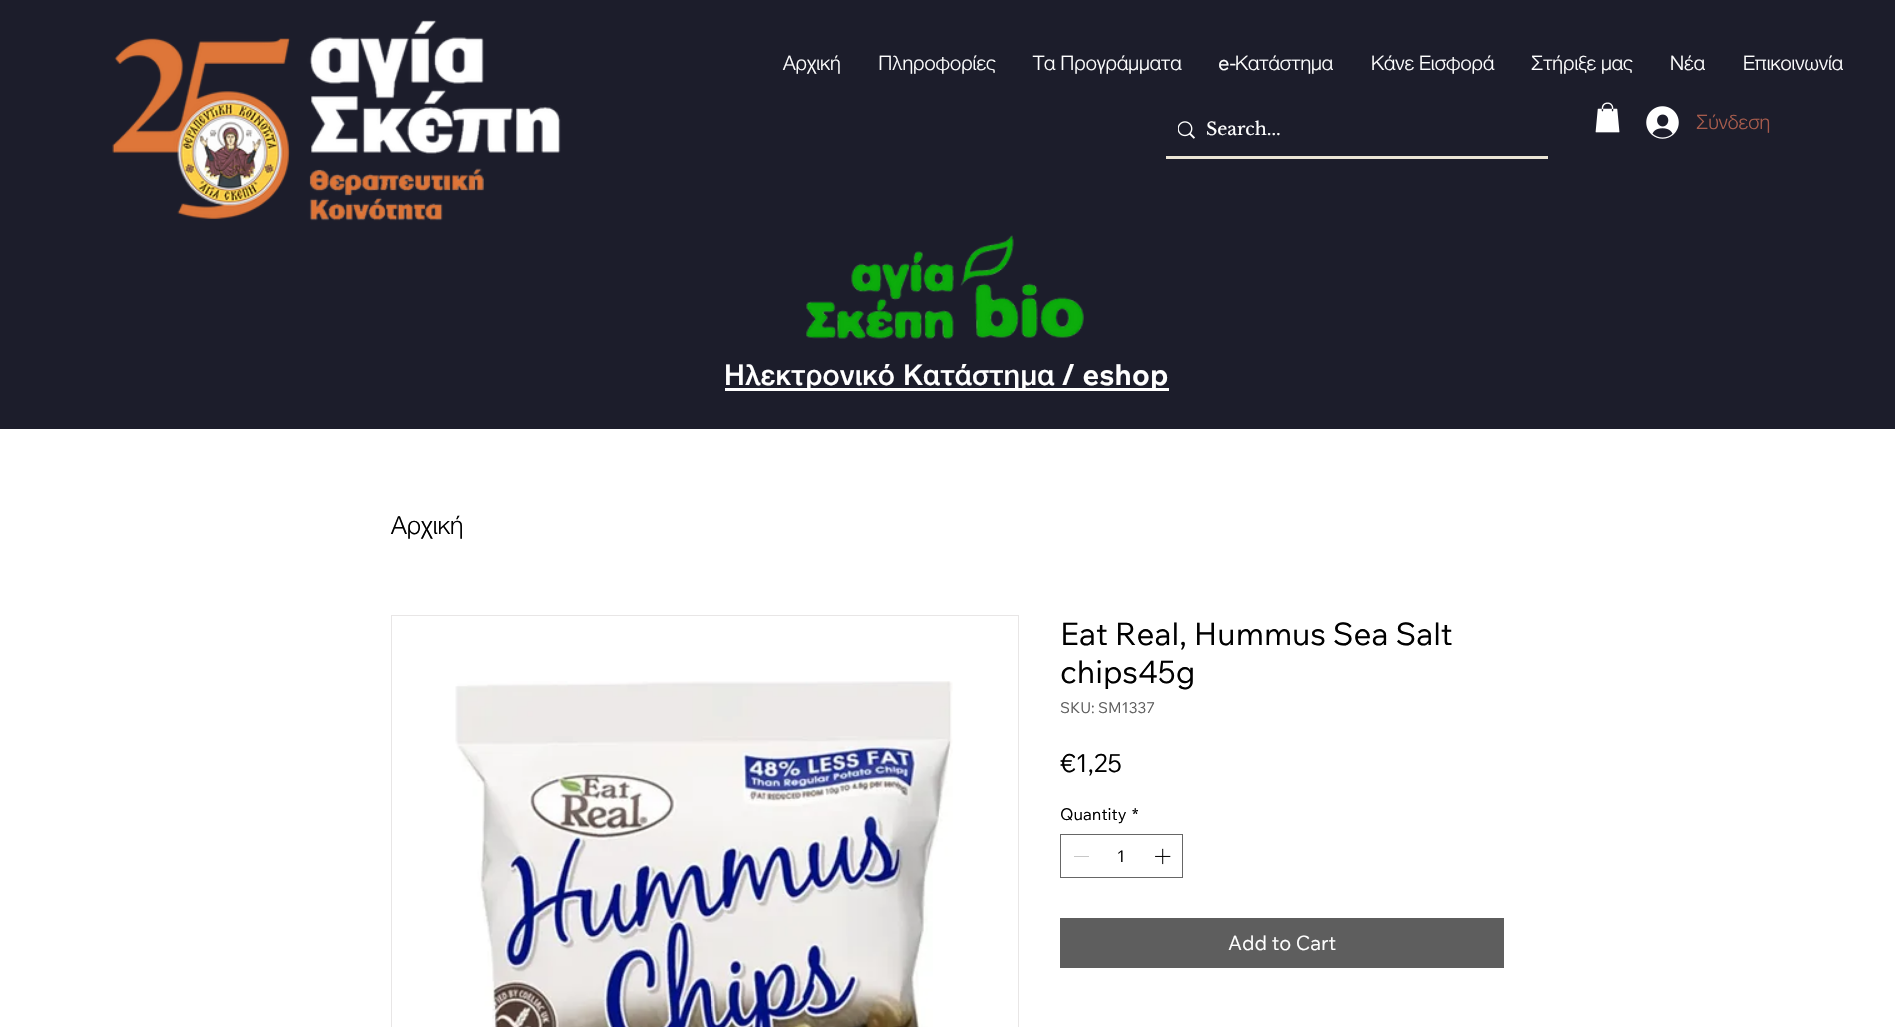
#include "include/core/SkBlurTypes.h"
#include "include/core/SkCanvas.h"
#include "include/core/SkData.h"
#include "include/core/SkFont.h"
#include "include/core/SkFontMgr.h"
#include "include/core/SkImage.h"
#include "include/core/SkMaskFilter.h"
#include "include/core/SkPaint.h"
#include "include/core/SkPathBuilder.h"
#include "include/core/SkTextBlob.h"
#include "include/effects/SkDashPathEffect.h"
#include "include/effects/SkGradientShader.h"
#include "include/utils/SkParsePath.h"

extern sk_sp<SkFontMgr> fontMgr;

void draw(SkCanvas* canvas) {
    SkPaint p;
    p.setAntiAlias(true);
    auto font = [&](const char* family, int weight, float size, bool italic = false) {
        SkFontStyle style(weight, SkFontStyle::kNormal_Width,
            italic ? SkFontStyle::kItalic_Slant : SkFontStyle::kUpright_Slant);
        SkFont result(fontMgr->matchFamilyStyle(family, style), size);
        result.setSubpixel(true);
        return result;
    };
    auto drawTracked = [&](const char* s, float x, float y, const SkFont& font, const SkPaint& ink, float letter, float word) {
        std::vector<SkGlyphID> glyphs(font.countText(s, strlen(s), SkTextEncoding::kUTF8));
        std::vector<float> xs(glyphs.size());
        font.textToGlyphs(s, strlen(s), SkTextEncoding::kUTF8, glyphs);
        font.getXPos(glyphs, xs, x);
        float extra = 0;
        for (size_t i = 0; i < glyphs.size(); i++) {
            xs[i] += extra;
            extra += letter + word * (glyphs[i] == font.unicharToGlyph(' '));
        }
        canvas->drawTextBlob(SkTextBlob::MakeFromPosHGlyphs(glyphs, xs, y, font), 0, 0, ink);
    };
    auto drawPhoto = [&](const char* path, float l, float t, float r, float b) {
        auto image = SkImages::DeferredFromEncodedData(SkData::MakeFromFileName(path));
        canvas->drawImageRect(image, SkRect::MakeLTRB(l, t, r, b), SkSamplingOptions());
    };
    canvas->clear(0xFFFFFFFF);
    p.setColor(0xFF1C1D2B);
    canvas->drawRect(SkRect::MakeLTRB(0, 0, 1895, 429), p);
    drawPhoto("media/1.png", 112, 20, 561, 221);
    auto font1 = font("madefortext", 300, 20);
    p.setColor(0xFFFFFFFF);
    {
        const struct { const char* s; float x, y; } items[] = {
            {"Αρχική", 783, 70},
            {"Πληροφορίες", 878, 70},
            {"Τα", 1033, 70},
            {"Προγράμματα", 1060, 70},
        };
        for (auto [s, x, y] : items) {
            canvas->drawString(s, x, y, font1, p);
        }
    }
    auto font2 = font("Wix Madefor Text", 400, 20);
    canvas->drawString("e-", 1218, 70, font2, p);
    {
        const struct { const char* s; float x, y; } items[] = {
            {"Κατάστημα", 1235, 70},
            {"Κάνε", 1371, 70},
            {"Εισφορά", 1419, 70},
            {"Στήριξε", 1531, 70},
            {"μας", 1601, 70},
            {"Νέα", 1670, 70},
            {"Επικοινωνία", 1743, 70},
        };
        for (auto [s, x, y] : items) {
            canvas->drawString(s, x, y, font1, p);
        }
    }
    p.setColor(0xFFEBE5D6);
    canvas->drawRect(SkRect::MakeLTRB(1166, 156, 1548, 159), p);
    drawPhoto("media/2.png", 1178, 121, 1195, 139);
    auto font3 = font("Libre Baskerville", 400, 17.5f);
    p.setColor(0xFFFFFFFF);
    canvas->drawString("Search...", 1206, 135, font3, p);
    drawPhoto("media/3.png", 1595, 102, 1620, 133);
    drawPhoto("media/4.png", 1646, 106, 1679, 139);
    p.setColor(0xFFA65B4C);
    canvas->drawString("Σύνδεση", 1696, 129, font1, p);
    drawPhoto("media/5.png", 806, 235, 1084, 339);
    p.setColor(0xFFFFFFFF);
    canvas->drawRect(SkRect::MakeLTRB(725, 388, 1169, 391), p);
    auto font4 = font("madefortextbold", 500, 28.75f);
    drawTracked("Ηλεκτρονικό", 724, 385, font4, p, 0.25f, 0);
    drawTracked("Κατάστημα", 903, 385, font4, p, 0.25f, 0);
    auto font5 = font("Wix Madefor Text", 700, 28.75f);
    drawTracked("/ eshop", 1061, 385, font5, p, 0.25f, 0);
    auto font6 = font("madefortext", 300, 25);
    p.setColor(0xFF000000);
    canvas->drawString("Αρχική", 391, 534, font6, p);
    p.setStyle(SkPaint::kStroke_Style);
    p.setStrokeWidth(1);
    p.setColor(0xFFE8E6E6);
    canvas->drawRect(SkRect::MakeLTRB(391.5f, 615.5f, 1018.5f, 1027.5f), p);
    drawPhoto("media/6.png", 455, 681, 953, 1027);
    auto font7 = font("Wix Madefor Text", 400, 31.25f);
    p.setStyle(SkPaint::kFill_Style);
    p.setColor(0xFF000000);
    canvas->drawString("Eat Real, Hummus Sea Salt", 1060, 645, font7, p);
    canvas->drawString("chips45g", 1060, 683, font7, p);
    auto font8 = font("Wix Madefor Text", 400, 15);
    p.setColor(0xFF5E5E5E);
    canvas->drawString("SKU: SM1337", 1060, 713, font8, p);
    auto font9 = font("Wix Madefor Text", 400, 25);
    p.setColor(0xFF000000);
    canvas->drawString("€1,25", 1060, 772, font9, p);
    auto font10 = font("Wix Madefor Text", 400, 16.25f);
    canvas->drawString("Quantity", 1060, 820, font10, p);
    canvas->drawString("*", 1132, 820, font10, p);
    p.setStyle(SkPaint::kStroke_Style);
    p.setColor(0xFF666666);
    canvas->drawRect(SkRect::MakeLTRB(1060.5f, 834.5f, 1182.5f, 877.5f), p);
    p.setStyle(SkPaint::kFill_Style);
    p.setColor(0xFFC7C7C7);
    canvas->drawRect(SkRect::MakeLTRB(1074, 856, 1089, 857), p);
    p.setColor(0xFF000000);
    canvas->drawString("1", 1117, 862, font10, p);
    drawPhoto("media/7.png", 1155, 848, 1171, 865);
    p.setColor(0xFF5E5E5E);
    canvas->drawRect(SkRect::MakeLTRB(1060, 918, 1504, 968), p);
    p.setColor(0xFFFFFFFF);
    canvas->drawString("Add to Cart", 1228, 950, font2, p);
}
